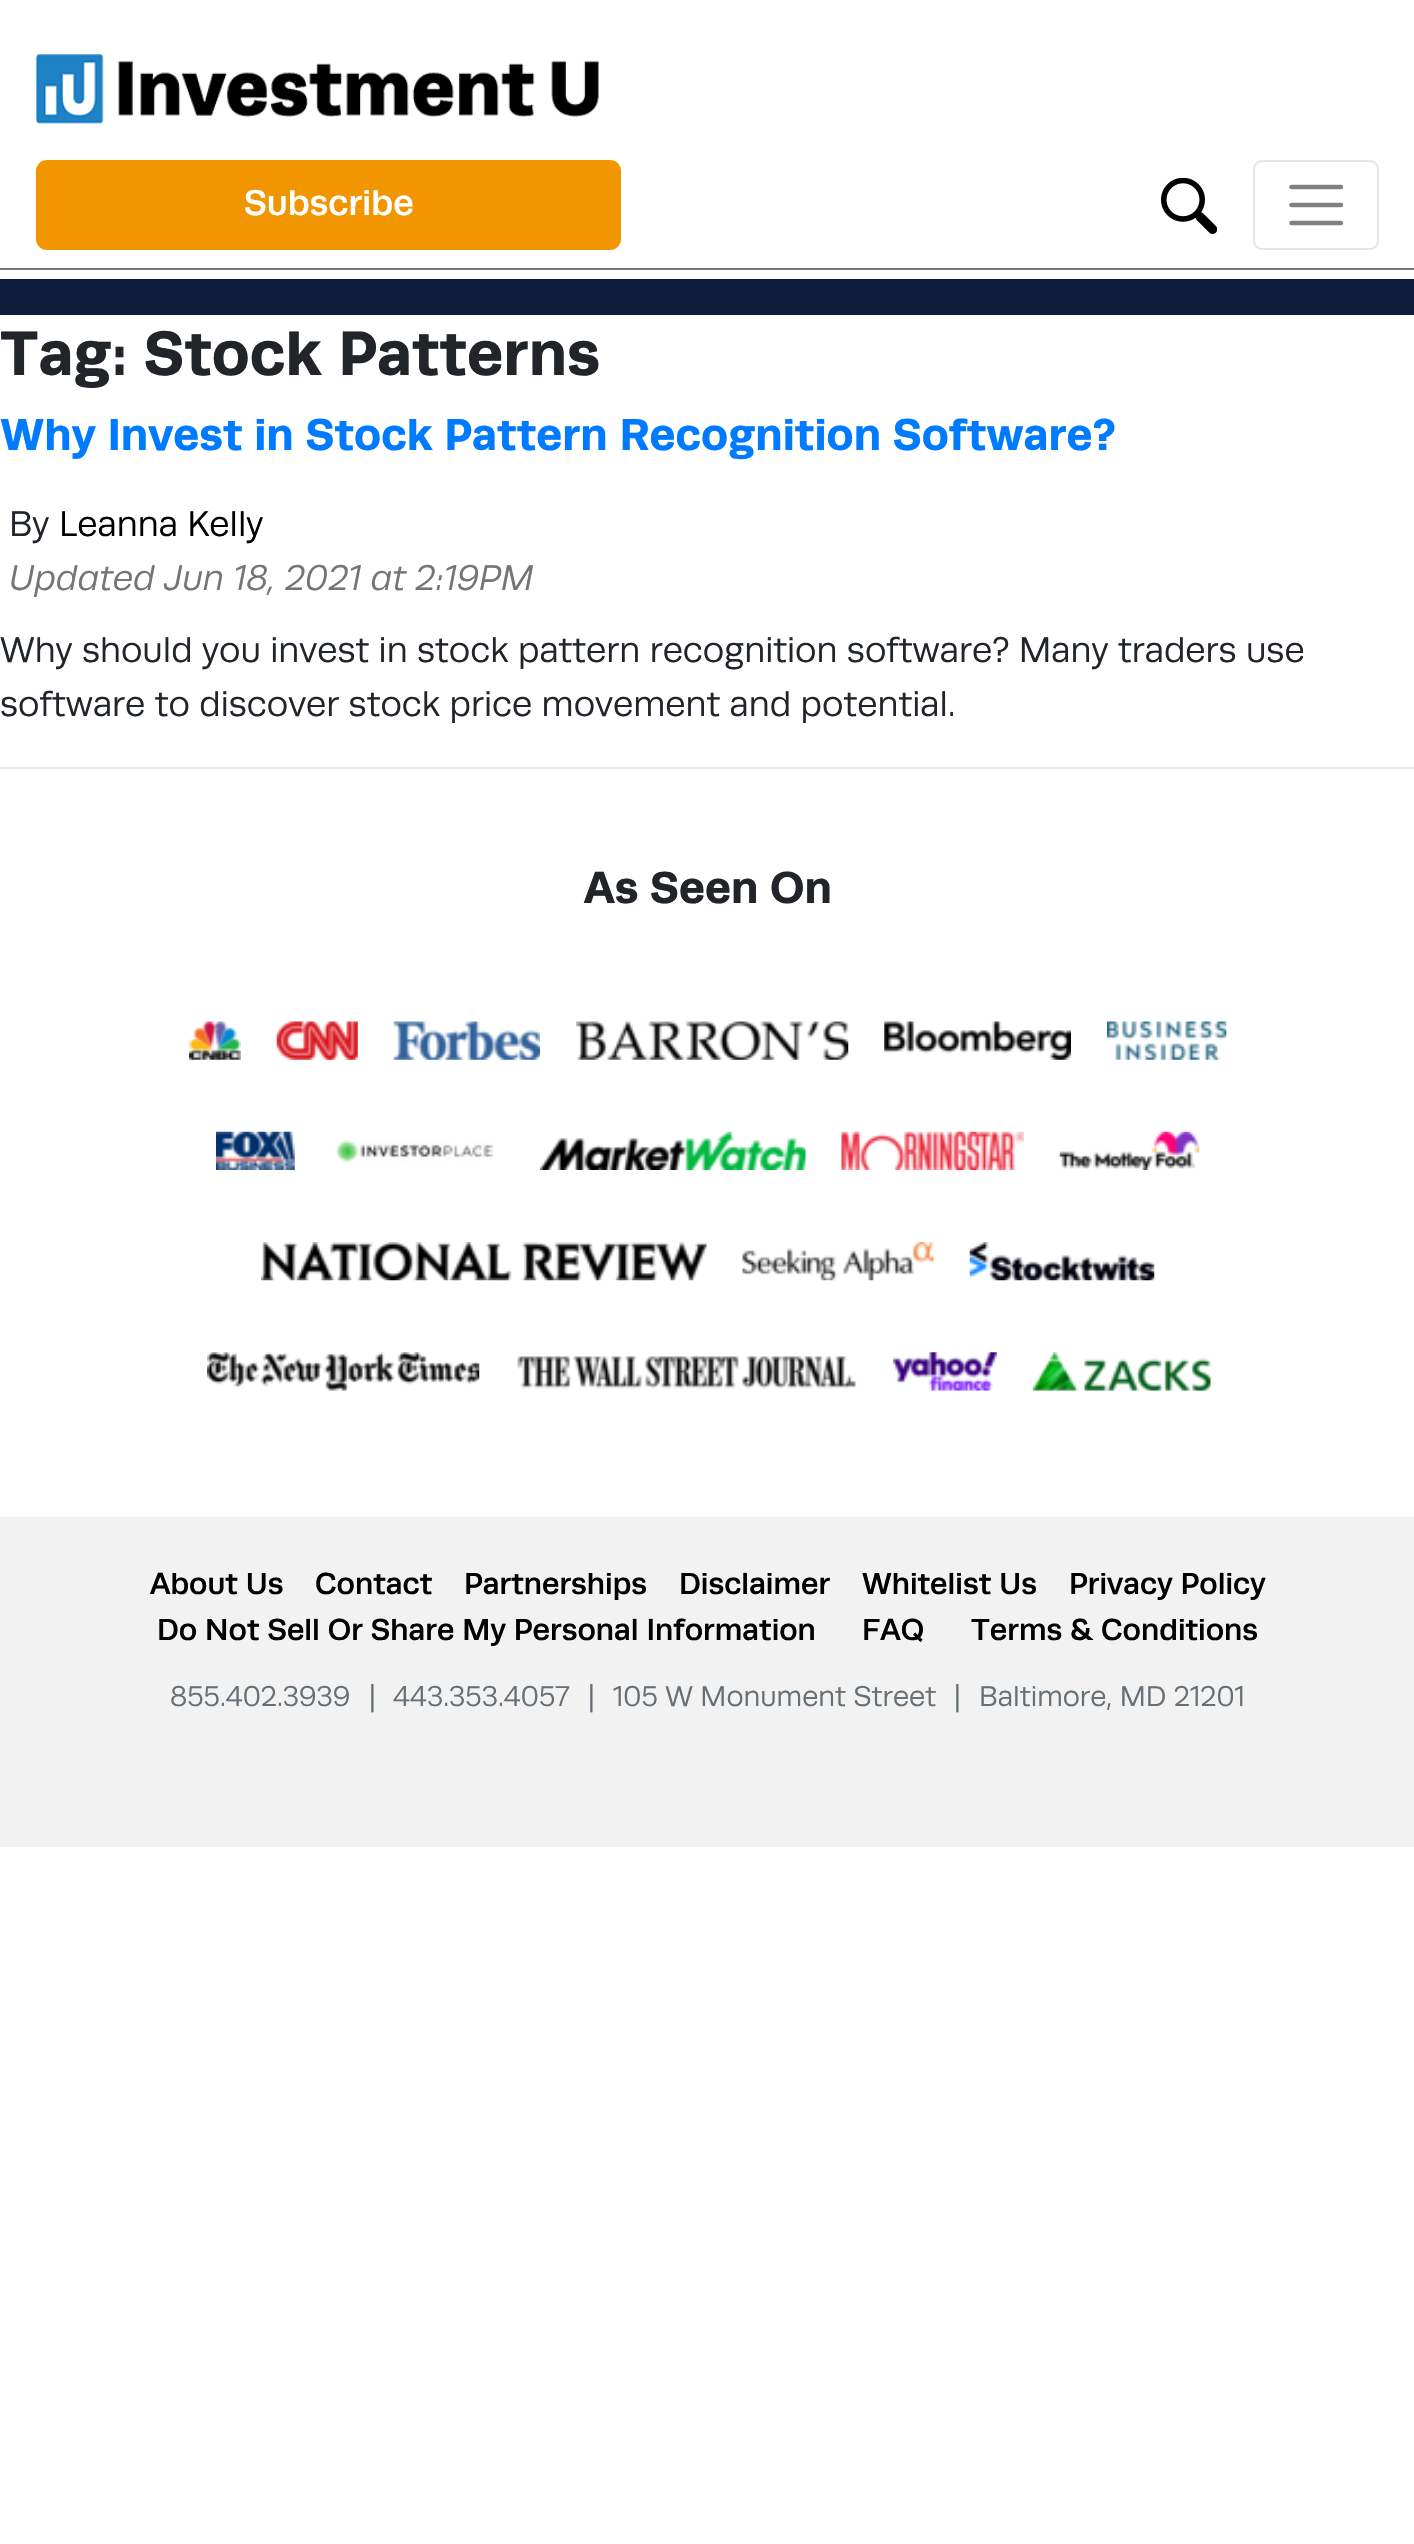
#include "include/core/SkBlurTypes.h"
#include "include/core/SkCanvas.h"
#include "include/core/SkData.h"
#include "include/core/SkFont.h"
#include "include/core/SkFontMgr.h"
#include "include/core/SkImage.h"
#include "include/core/SkMaskFilter.h"
#include "include/core/SkPaint.h"
#include "include/core/SkPathBuilder.h"
#include "include/core/SkTextBlob.h"
#include "include/effects/SkDashPathEffect.h"
#include "include/effects/SkGradientShader.h"
#include "include/utils/SkParsePath.h"

extern sk_sp<SkFontMgr> fontMgr;

void draw(SkCanvas* canvas) {
    SkPaint p;
    p.setAntiAlias(true);
    auto font = [&](const char* family, int weight, float size, bool italic = false) {
        SkFontStyle style(weight, SkFontStyle::kNormal_Width,
            italic ? SkFontStyle::kItalic_Slant : SkFontStyle::kUpright_Slant);
        SkFont result(fontMgr->matchFamilyStyle(family, style), size);
        result.setSubpixel(true);
        return result;
    };
    auto drawPhoto = [&](const char* path, float l, float t, float r, float b) {
        auto image = SkImages::DeferredFromEncodedData(SkData::MakeFromFileName(path));
        canvas->drawImageRect(image, SkRect::MakeLTRB(l, t, r, b), SkSamplingOptions());
    };
    canvas->clear(0xFFFFFFFF);
    p.setColor(0xFF757575);
    canvas->drawRect(SkRect::MakeLTRB(0, 268, 1414, 270), p);
    drawPhoto("media/1.png", 36, 54, 599, 124);
    p.setColor(0xFFF19601);
    canvas->drawRoundRect(SkRect::MakeLTRB(36, 160, 621, 250), 11, 11, p);
    auto font1 = font("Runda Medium", 500, 36);
    p.setColor(0xFFFFFFFF);
    canvas->drawString("Subscribe", 244, 215, font1, p);
    drawPhoto("media/2.png", 1161, 178, 1217, 234);
    p.setStyle(SkPaint::kStroke_Style);
    p.setStrokeWidth(2);
    p.setColor(0xFFE6E6E6);
    canvas->drawRoundRect(SkRect::MakeLTRB(1254, 161, 1378, 249), 8, 8, p);
    p.setStrokeWidth(4.5f);
    p.setStrokeCap(SkPaint::kRound_Cap);
    p.setColor(0xFF808080);
    canvas->drawPath(SkPathBuilder().moveTo(1291.5f, 187).lineTo(1341, 187).moveTo(1291.5f, 205).lineTo(1341, 205).moveTo(1291.5f, 223).lineTo(1341, 223).detach(), p);
    p.setStyle(SkPaint::kFill_Style);
    p.setColor(0xFF0C1C3A);
    canvas->drawRect(SkRect::MakeLTRB(0, 279, 1414, 315), p);
    auto font2 = font("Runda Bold", 700, 63);
    p.setColor(0xFF212529);
    canvas->drawString("Tag: Stock Patterns", 0, 375, font2, p);
    auto font3 = font("Runda Bold", 700, 45);
    p.setColor(0xFF007BFF);
    canvas->drawString("Why Invest in Stock Pattern Recognition Software?", 0, 450, font3, p);
    auto font4 = font("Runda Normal", 400, 36);
    p.setColor(0xFF212529);
    canvas->drawString("By", 9, 536, font4, p);
    p.setColor(0xFF000000);
    canvas->drawString("Leanna Kelly", 59, 536, font4, p);
    auto font5 = font("Runda Normal", 400, 36, true);
    p.setColor(0xFF757575);
    canvas->drawString("Updated Jun 18, 2021 at 2:19PM", 9, 590, font5, p);
    p.setColor(0xFF212529);
    canvas->drawString("Why should you invest in stock pattern recognition software? Many traders use", 0, 662, font4, p);
    canvas->drawString("software to discover stock price movement and potential.", 0, 716, font4, p);
    p.setColor(0xFFE6E6E6);
    canvas->drawRect(SkRect::MakeLTRB(0, 767, 1414, 769), p);
    p.setColor(0xFFF2F2F2);
    canvas->drawRect(SkRect::MakeLTRB(0, 1517, 1414, 1847), p);
    p.setColor(0xFF212529);
    canvas->drawString("As Seen On", 584, 903, font3, p);
    drawPhoto("media/3.png", 189, 1021, 241, 1060);
    drawPhoto("media/4.png", 276, 1021, 358, 1060);
    drawPhoto("media/5.png", 393, 1021, 540, 1060);
    drawPhoto("media/6.png", 576, 1021, 849, 1060);
    drawPhoto("media/7.png", 884, 1021, 1071, 1060);
    drawPhoto("media/8.png", 1107, 1021, 1227, 1060);
    drawPhoto("media/9.png", 216, 1131, 295, 1170);
    drawPhoto("media/10.png", 335, 1140, 494, 1162);
    drawPhoto("media/11.png", 540, 1131, 806, 1170);
    drawPhoto("media/12.png", 841, 1131, 1024, 1170);
    drawPhoto("media/13.png", 1059, 1131, 1200, 1170);
    drawPhoto("media/14.png", 261, 1242, 707, 1281);
    drawPhoto("media/15.png", 742, 1242, 934, 1281);
    drawPhoto("media/16.png", 969, 1242, 1155, 1281);
    drawPhoto("media/17.png", 207, 1352, 480, 1391);
    drawPhoto("media/18.png", 517, 1356, 857, 1389);
    drawPhoto("media/19.png", 893, 1352, 997, 1391);
    drawPhoto("media/20.png", 1032, 1352, 1211, 1391);
    auto font6 = font("Runda Medium", 500, 30.6f);
    p.setColor(0xFF000000);
    {
        const struct { const char* s; float x, y; } items[] = {
            {"About Us", 150, 1594},
            {"Contact", 315, 1594},
            {"Partnerships", 464, 1594},
            {"Disclaimer", 679, 1594},
            {"Whitelist Us", 862, 1594},
            {"Privacy Policy", 1069, 1594},
            {"Do Not Sell Or Share My Personal Information", 157, 1640},
            {"FAQ", 862, 1640},
            {"Terms & Conditions", 971, 1640},
        };
        for (auto [s, x, y] : items) {
            canvas->drawString(s, x, y, font6, p);
        }
    }
    auto font7 = font("Runda Normal", 400, 28.75f);
    p.setColor(0xFF666F75);
    {
        const struct { const char* s; float x, y; } items[] = {
            {"855.402.3939", 170, 1706},
            {"|", 369, 1706},
            {"443.353.4057", 393, 1706},
            {"|", 588, 1706},
            {"105 W Monument Street", 613, 1706},
            {"|", 954, 1706},
            {"Baltimore, MD 21201", 979, 1706},
        };
        for (auto [s, x, y] : items) {
            canvas->drawString(s, x, y, font7, p);
        }
    }
}
